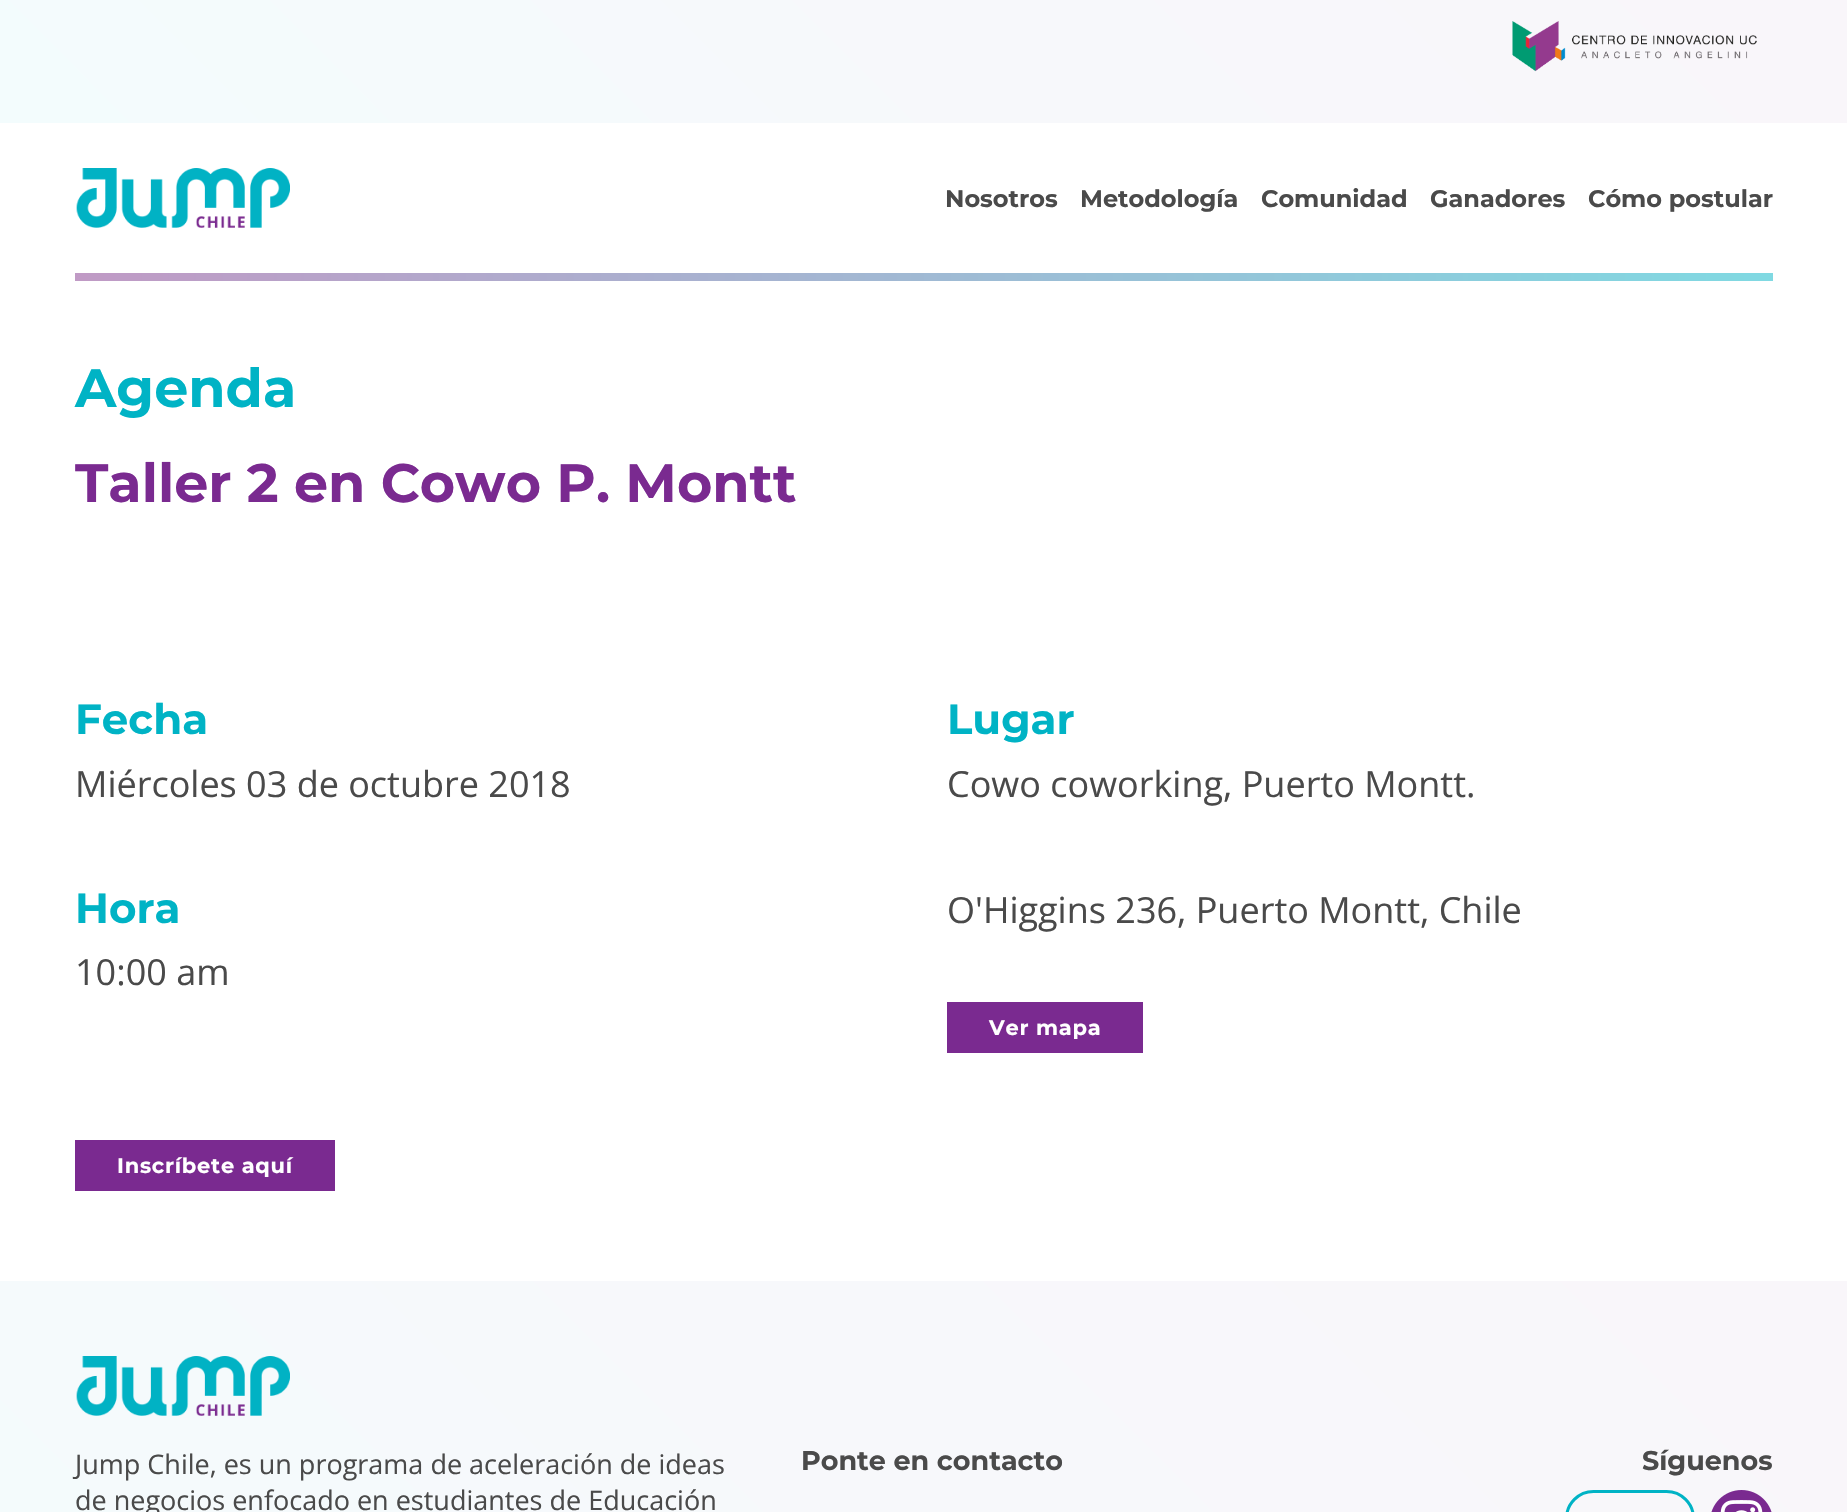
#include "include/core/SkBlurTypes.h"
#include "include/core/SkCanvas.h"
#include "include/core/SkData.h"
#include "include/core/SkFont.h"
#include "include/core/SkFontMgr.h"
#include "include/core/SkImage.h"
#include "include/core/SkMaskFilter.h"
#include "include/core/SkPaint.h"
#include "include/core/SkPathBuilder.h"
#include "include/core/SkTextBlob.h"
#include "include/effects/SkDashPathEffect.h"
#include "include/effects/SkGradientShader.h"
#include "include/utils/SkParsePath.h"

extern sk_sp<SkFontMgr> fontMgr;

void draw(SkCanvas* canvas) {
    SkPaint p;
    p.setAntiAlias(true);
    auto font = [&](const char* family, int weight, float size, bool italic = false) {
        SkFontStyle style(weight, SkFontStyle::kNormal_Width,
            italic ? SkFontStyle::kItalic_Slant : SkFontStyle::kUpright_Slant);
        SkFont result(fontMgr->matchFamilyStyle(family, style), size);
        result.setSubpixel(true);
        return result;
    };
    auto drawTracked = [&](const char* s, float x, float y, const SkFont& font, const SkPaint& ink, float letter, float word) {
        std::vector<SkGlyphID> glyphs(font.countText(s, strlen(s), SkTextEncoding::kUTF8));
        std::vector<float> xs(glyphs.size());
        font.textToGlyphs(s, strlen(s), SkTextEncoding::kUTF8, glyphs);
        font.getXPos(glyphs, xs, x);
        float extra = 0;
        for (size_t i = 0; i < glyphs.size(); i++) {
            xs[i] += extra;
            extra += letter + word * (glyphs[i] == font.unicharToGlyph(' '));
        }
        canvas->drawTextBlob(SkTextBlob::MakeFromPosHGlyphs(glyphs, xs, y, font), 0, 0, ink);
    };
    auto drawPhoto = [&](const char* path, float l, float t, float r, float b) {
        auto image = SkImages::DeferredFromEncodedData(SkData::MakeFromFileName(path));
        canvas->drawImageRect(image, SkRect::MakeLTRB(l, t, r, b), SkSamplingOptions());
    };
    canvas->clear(0xFFFFFFFF);
    {
        const SkColor colors[] = {0xFFF3FCFD, 0xFFF7F8FB, 0xFFF9F6FA};
        const float stops[] = {0, 0.53f, 1};
        const SkPoint ends[] = {{431, 554}, {1417, -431}};
        p.setShader(SkGradientShader::MakeLinear(ends, colors, stops, 3, SkTileMode::kClamp));
        p.setAlpha(255);
    }
    canvas->drawRect(SkRect::MakeLTRB(0, 0, 1847, 123), p);
    drawPhoto("media/1.png", 1512, 21, 1757, 72);
    drawPhoto("media/2.png", 76, 168, 290, 228);
    auto font1 = font("Montserrat", 700, 24);
    p.setShader(nullptr);
    p.setColor(0xFF4A4A4A);
    {
        const struct { const char* s; float x, y; } items[] = {
            {"Nosotros", 945, 207},
            {"Metodología", 1080, 207},
            {"Comunidad", 1261, 207},
            {"Ganadores", 1430, 207},
            {"Cómo postular", 1588, 207},
        };
        for (auto [s, x, y] : items) {
            canvas->drawString(s, x, y, font1, p);
        }
    }
    {
        const SkColor colors[] = {0xFF80D9E2, 0xFFC09AC5};
        const float stops[] = {0, 1};
        const SkPoint ends[] = {{1773, 277}, {75, 277}};
        p.setShader(SkGradientShader::MakeLinear(ends, colors, stops, 2, SkTileMode::kClamp));
        p.setAlpha(255);
    }
    canvas->drawRect(SkRect::MakeLTRB(75, 273, 1773, 281), p);
    auto font2 = font("Montserrat", 700, 54);
    p.setShader(nullptr);
    p.setColor(0xFF00B3C5);
    canvas->drawString("Agenda", 75, 407, font2, p);
    p.setColor(0xFF7A2A90);
    canvas->drawString("Taller 2 en Cowo P. Montt", 75, 502, font2, p);
    auto font3 = font("Montserrat", 700, 42);
    p.setColor(0xFF00B3C5);
    canvas->drawString("Fecha", 75, 734, font3, p);
    auto font4 = font("Open Sans", 400, 36);
    p.setColor(0xFF4A4A4A);
    canvas->drawString("Miércoles 03 de octubre 2018", 75, 797, font4, p);
    p.setColor(0xFF00B3C5);
    canvas->drawString("Hora", 75, 923, font3, p);
    p.setColor(0xFF4A4A4A);
    canvas->drawString("10:00 am", 75, 985, font4, p);
    p.setColor(0xFF00B3C5);
    canvas->drawString("Lugar", 947, 734, font3, p);
    p.setColor(0xFF4A4A4A);
    canvas->drawString("Cowo coworking, Puerto Montt.", 947, 797, font4, p);
    canvas->drawString("O'Higgins 236, Puerto Montt, Chile", 947, 923, font4, p);
    p.setColor(0xFF7A2A90);
    canvas->drawRect(SkRect::MakeLTRB(947, 1002, 1143, 1053), p);
    auto font5 = font("Montserrat", 700, 21);
    p.setColor(0xFFFFFFFF);
    drawTracked("Ver mapa", 989, 1035, font5, p, 0.75f, 0);
    p.setColor(0xFF7A2A90);
    canvas->drawRect(SkRect::MakeLTRB(75, 1140, 335, 1191), p);
    p.setColor(0xFFFFFFFF);
    drawTracked("Inscríbete aquí", 117, 1173, font5, p, 0.75f, 0);
    {
        const SkColor colors[] = {0xFFF3FCFD, 0xFFF7F8FB, 0xFFF9F6FA};
        const float stops[] = {0, 0.53f, 1};
        const SkPoint ends[] = {{311, 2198}, {1538, 971}};
        p.setShader(SkGradientShader::MakeLinear(ends, colors, stops, 3, SkTileMode::kClamp));
        p.setAlpha(255);
    }
    canvas->drawRect(SkRect::MakeLTRB(0, 1281, 1847, 1512), p);
    drawPhoto("media/3.png", 76, 1356, 290, 1416);
    auto font6 = font("Open Sans", 400, 27);
    p.setShader(nullptr);
    p.setColor(0xFF4A4A4A);
    canvas->drawString("Jump Chile, es un programa de aceleración de ideas", 75, 1474, font6, p);
    canvas->drawString("de negocios enfocado en estudiantes de Educación", 75, 1510, font6, p);
    auto font7 = font("Montserrat", 700, 27);
    canvas->drawString("Ponte en contacto", 801, 1470, font7, p);
    canvas->drawString("Síguenos", 1642, 1470, font7, p);
    p.setStyle(SkPaint::kStroke_Style);
    p.setStrokeWidth(3);
    p.setColor(0xFF00B3C5);
    canvas->drawRoundRect(SkRect::MakeLTRB(1566.5f, 1491.5f, 1693.5f, 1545.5f), 30, 30, p);
    drawPhoto("media/4.png", 1711, 1490, 1772, 1512);
}
